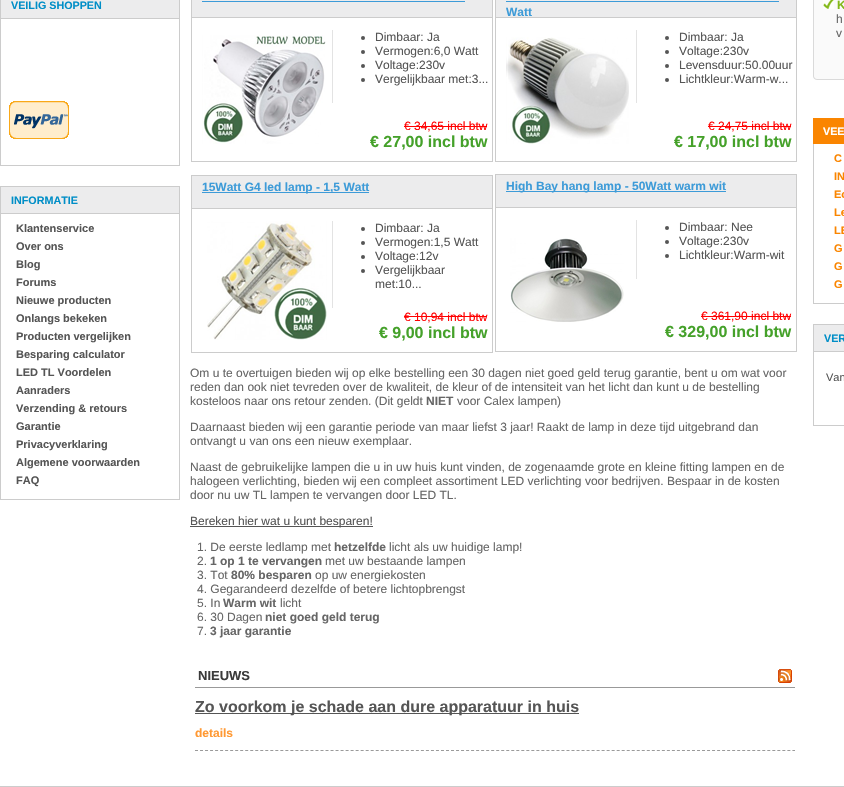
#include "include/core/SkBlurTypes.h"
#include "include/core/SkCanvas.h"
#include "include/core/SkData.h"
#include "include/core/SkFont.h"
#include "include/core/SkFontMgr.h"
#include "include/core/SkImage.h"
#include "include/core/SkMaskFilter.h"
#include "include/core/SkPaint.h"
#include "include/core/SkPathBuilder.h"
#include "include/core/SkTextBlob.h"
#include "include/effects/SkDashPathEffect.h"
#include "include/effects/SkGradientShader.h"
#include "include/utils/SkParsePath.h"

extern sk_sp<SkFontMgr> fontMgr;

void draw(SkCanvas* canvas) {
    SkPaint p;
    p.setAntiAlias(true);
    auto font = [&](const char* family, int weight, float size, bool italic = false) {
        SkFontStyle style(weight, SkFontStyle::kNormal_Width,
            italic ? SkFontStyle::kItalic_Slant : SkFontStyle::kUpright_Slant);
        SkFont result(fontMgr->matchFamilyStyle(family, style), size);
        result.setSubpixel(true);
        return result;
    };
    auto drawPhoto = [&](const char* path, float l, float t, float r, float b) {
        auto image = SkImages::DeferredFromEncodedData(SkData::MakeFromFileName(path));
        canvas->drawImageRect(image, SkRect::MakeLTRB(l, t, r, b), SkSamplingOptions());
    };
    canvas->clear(0xFFFFFFFF);
    p.setColor(0xFFECECED);
    canvas->drawRect(SkRect::MakeLTRB(0.5f, -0.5f, 179.5f, 18.5f), p);
    p.setStyle(SkPaint::kStroke_Style);
    p.setStrokeWidth(1);
    p.setColor(0xFFCCCCCC);
    canvas->drawRect(SkRect::MakeLTRB(0.5f, -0.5f, 179.5f, 18.5f), p);
    auto font1 = font("Liberation Sans", 700, 10.75f);
    p.setStyle(SkPaint::kFill_Style);
    p.setColor(0xFF008EC7);
    canvas->drawString("VEILIG SHOPPEN", 11, 9, font1, p);
    {
        const struct { float l, t, r, b; SkColor color; } items[] = {
            {179, 19, 180, 166, 0xFFCCCCCC},
            {0, 165, 180, 166, 0xFFCCCCCC},
            {0, 19, 1, 166, 0xFFCCCCCC},
        };
        for (auto [l, t, r, b, color] : items) {
            p.setColor(color);
            canvas->drawRect(SkRect::MakeLTRB(l, t, r, b), p);
        }
    }
    drawPhoto("media/1.png", 9, 101, 69, 139);
    p.setColor(0xFFECECED);
    canvas->drawRect(SkRect::MakeLTRB(0.5f, 186.5f, 179.5f, 213.5f), p);
    p.setStyle(SkPaint::kStroke_Style);
    p.setColor(0xFFCCCCCC);
    canvas->drawRect(SkRect::MakeLTRB(0.5f, 186.5f, 179.5f, 213.5f), p);
    p.setStyle(SkPaint::kFill_Style);
    p.setColor(0xFF008EC7);
    canvas->drawString("INFORMATIE", 11, 204, font1, p);
    {
        const struct { float l, t, r, b; SkColor color; } items[] = {
            {179, 214, 180, 500, 0xFFCCCCCC},
            {0, 499, 180, 500, 0xFFCCCCCC},
            {0, 214, 1, 500, 0xFFCCCCCC},
        };
        for (auto [l, t, r, b, color] : items) {
            p.setColor(color);
            canvas->drawRect(SkRect::MakeLTRB(l, t, r, b), p);
        }
    }
    auto font2 = font("Liberation Sans", 700, 11);
    p.setColor(0xFF555555);
    {
        const struct { const char* s; float x, y; } items[] = {
            {"Klantenservice", 16, 232},
            {"Over ons", 16, 250},
            {"Blog", 16, 268},
            {"Forums", 16, 286},
            {"Nieuwe producten", 16, 304},
            {"Onlangs bekeken", 16, 322},
            {"Producten vergelijken", 16, 340},
            {"Besparing calculator", 16, 358},
            {"LED TL Voordelen", 16, 376},
            {"Aanraders", 16, 394},
            {"Verzending & retours", 16, 412},
            {"Garantie", 16, 430},
            {"Privacyverklaring", 16, 448},
            {"Algemene voorwaarden", 16, 466},
            {"FAQ", 16, 484},
        };
        for (auto [s, x, y] : items) {
            canvas->drawString(s, x, y, font2, p);
        }
    }
    {
        const struct { float l, t, r, b; SkColor color; } items[] = {
            {492, 0, 493, 162, 0xFFCCCCCC},
            {191, 161, 493, 162, 0xFFCCCCCC},
            {191, 0, 192, 162, 0xFFCCCCCC},
            {192, 0, 492, 17, 0xFFECECED},
            {192, 17, 492, 18, 0xFFCCCCCC},
            {202, 1, 465, 2, 0xFF3D9BD8},
        };
        for (auto [l, t, r, b, color] : items) {
            p.setColor(color);
            canvas->drawRect(SkRect::MakeLTRB(l, t, r, b), p);
        }
    }
    drawPhoto("media/2.png", 202, 35, 326, 144);
    p.setColor(0xFFE3E3E3);
    canvas->drawRect(SkRect::MakeLTRB(332, 30, 333, 103), p);
    p.setColor(0xFF555555);
    canvas->drawCircle(363, 38, 2, p);
    auto font3 = font("Liberation Sans", 400, 12);
    canvas->drawString("Dimbaar: Ja", 375, 41, font3, p);
    canvas->drawCircle(363, 52, 2, p);
    canvas->drawString("Vermogen:6,0 Watt", 375, 55, font3, p);
    canvas->drawCircle(363, 66, 2, p);
    canvas->drawString("Voltage:230v", 375, 69, font3, p);
    canvas->drawCircle(363, 80, 2, p);
    canvas->drawString("Vergelijkbaar met:3...", 375, 83, font3, p);
    p.setColor(0xFFFF0000);
    canvas->drawString("€ 34,65 incl btw", 404, 130, font3, p);
    canvas->drawRect(SkRect::MakeLTRB(404, 126, 487, 127), p);
    auto font4 = font("Liberation Sans", 700, 16);
    p.setColor(0xFF45A12A);
    canvas->drawString("€ 27,00 incl btw", 370, 147, font4, p);
    {
        const struct { float l, t, r, b; SkColor color; } items[] = {
            {796, 0, 797, 162, 0xFFCCCCCC},
            {495, 161, 797, 162, 0xFFCCCCCC},
            {495, 0, 496, 162, 0xFFCCCCCC},
            {496, 0, 796, 17, 0xFFECECED},
            {496, 17, 796, 18, 0xFFCCCCCC},
        };
        for (auto [l, t, r, b, color] : items) {
            p.setColor(color);
            canvas->drawRect(SkRect::MakeLTRB(l, t, r, b), p);
        }
    }
    auto font5 = font("Liberation Sans", 700, 12);
    p.setColor(0xFF3D9BD8);
    canvas->drawString("Watt", 506, 16, font5, p);
    canvas->drawRect(SkRect::MakeLTRB(506, 1, 779, 2), p);
    drawPhoto("media/3.png", 506, 37, 629, 144);
    p.setColor(0xFFE3E3E3);
    canvas->drawRect(SkRect::MakeLTRB(636, 30, 637, 103), p);
    p.setColor(0xFF555555);
    canvas->drawCircle(667, 38, 2, p);
    canvas->drawString("Dimbaar: Ja", 679, 41, font3, p);
    canvas->drawCircle(667, 52, 2, p);
    canvas->drawString("Voltage:230v", 679, 55, font3, p);
    canvas->drawCircle(667, 66, 2, p);
    canvas->drawString("Levensduur:50.00uur", 679, 69, font3, p);
    canvas->drawCircle(667, 80, 2, p);
    canvas->drawString("Lichtkleur:Warm-w...", 679, 83, font3, p);
    p.setColor(0xFFFF0000);
    canvas->drawString("€ 24,75 incl btw", 708, 130, font3, p);
    canvas->drawRect(SkRect::MakeLTRB(708, 126, 791, 127), p);
    p.setColor(0xFF45A12A);
    canvas->drawString("€ 17,00 incl btw", 674, 147, font4, p);
    {
        const struct { float l, t, r, b; SkColor color; } items[] = {
            {492, 175, 493, 353, 0xFFCCCCCC},
            {191, 352, 493, 353, 0xFFCCCCCC},
            {191, 175, 192, 353, 0xFFCCCCCC},
            {192, 176, 492, 208, 0xFFECECED},
            {192, 175, 492, 176, 0xFFCCCCCC},
            {192, 208, 492, 209, 0xFFCCCCCC},
            {202, 192, 369, 193, 0xFF3D9BD8},
        };
        for (auto [l, t, r, b, color] : items) {
            p.setColor(color);
            canvas->drawRect(SkRect::MakeLTRB(l, t, r, b), p);
        }
    }
    canvas->drawString("15Watt G4 led lamp - 1,5 Watt", 202, 191, font5, p);
    drawPhoto("media/4.png", 207, 221, 327, 340);
    p.setColor(0xFFE3E3E3);
    canvas->drawRect(SkRect::MakeLTRB(332, 221, 333, 308), p);
    p.setColor(0xFF555555);
    canvas->drawCircle(363, 229, 2, p);
    canvas->drawString("Dimbaar: Ja", 375, 232, font3, p);
    canvas->drawCircle(363, 243, 2, p);
    canvas->drawString("Vermogen:1,5 Watt", 375, 246, font3, p);
    canvas->drawCircle(363, 257, 2, p);
    canvas->drawString("Voltage:12v", 375, 260, font3, p);
    canvas->drawCircle(363, 271, 2, p);
    canvas->drawString("Vergelijkbaar", 375, 274, font3, p);
    canvas->drawString("met:10...", 375, 288, font3, p);
    p.setColor(0xFFFF0000);
    canvas->drawString("€ 10,94 incl btw", 404, 321, font3, p);
    canvas->drawRect(SkRect::MakeLTRB(404, 316, 487, 317), p);
    p.setColor(0xFF45A12A);
    canvas->drawString("€ 9,00 incl btw", 379, 338, font4, p);
    {
        const struct { float l, t, r, b; SkColor color; } items[] = {
            {796, 174, 797, 352, 0xFFCCCCCC},
            {495, 351, 797, 352, 0xFFCCCCCC},
            {495, 174, 496, 352, 0xFFCCCCCC},
            {496, 175, 796, 207, 0xFFECECED},
            {496, 174, 796, 175, 0xFFCCCCCC},
            {496, 207, 796, 208, 0xFFCCCCCC},
            {506, 191, 726, 192, 0xFF3D9BD8},
        };
        for (auto [l, t, r, b, color] : items) {
            p.setColor(color);
            canvas->drawRect(SkRect::MakeLTRB(l, t, r, b), p);
        }
    }
    canvas->drawString("High Bay hang lamp - 50Watt warm wit", 506, 190, font5, p);
    drawPhoto("media/5.png", 510, 238, 624, 322);
    p.setColor(0xFFE3E3E3);
    canvas->drawRect(SkRect::MakeLTRB(636, 220, 637, 279), p);
    p.setColor(0xFF555555);
    canvas->drawCircle(667, 228, 2, p);
    canvas->drawString("Dimbaar: Nee", 679, 231, font3, p);
    canvas->drawCircle(667, 242, 2, p);
    canvas->drawString("Voltage:230v", 679, 245, font3, p);
    canvas->drawCircle(667, 256, 2, p);
    canvas->drawString("Lichtkleur:Warm-wit", 679, 259, font3, p);
    p.setColor(0xFFFF0000);
    canvas->drawString("€ 361,90 incl btw", 701, 320, font3, p);
    canvas->drawRect(SkRect::MakeLTRB(701, 316, 791, 317), p);
    p.setColor(0xFF45A12A);
    canvas->drawString("€ 329,00 incl btw", 665, 337, font4, p);
    p.setColor(0xFF666666);
    {
        const struct { const char* s; float x, y; } items[] = {
            {"Om u te overtuigen bieden wij op elke bestelling een 30 dagen niet goed geld terug garantie, bent u om wat voor", 190, 377},
            {"reden dan ook niet tevreden over de kwaliteit, de kleur of de intensiteit van het licht dan kunt u de bestelling", 190, 391},
            {"kosteloos naar ons retour zenden. (Dit geldt", 190, 405},
        };
        for (auto [s, x, y] : items) {
            canvas->drawString(s, x, y, font3, p);
        }
    }
    canvas->drawString("NIET", 426, 405, font5, p);
    {
        const struct { const char* s; float x, y; } items[] = {
            {"voor Calex lampen)", 457, 405},
            {"Daarnaast bieden wij een garantie periode van maar liefst 3 jaar! Raakt de lamp in deze tijd uitgebrand dan", 190, 431},
            {"ontvangt u van ons een nieuw exemplaar.", 190, 445},
            {"Naast de gebruikelijke lampen die u in uw huis kunt vinden, de zogenaamde grote en kleine fitting lampen en de", 190, 471},
            {"halogeen verlichting, bieden wij een compleet assortiment LED verlichting voor bedrijven. Bespaar in de kosten", 190, 485},
            {"door nu uw TL lampen te vervangen door LED TL.", 190, 499},
        };
        for (auto [s, x, y] : items) {
            canvas->drawString(s, x, y, font3, p);
        }
    }
    p.setColor(0xFF555555);
    canvas->drawRect(SkRect::MakeLTRB(190, 526, 373, 527), p);
    canvas->drawString("Bereken hier wat u kunt besparen!", 190, 525, font3, p);
    p.setColor(0xFF666666);
    canvas->drawString("1. De eerste ledlamp met", 197, 551, font3, p);
    canvas->drawString("hetzelfde", 334, 551, font5, p);
    canvas->drawString("licht als uw huidige lamp!", 389, 551, font3, p);
    canvas->drawString("2.", 197, 565, font3, p);
    canvas->drawString("1 op 1 te vervangen", 210, 565, font5, p);
    canvas->drawString("met uw bestaande lampen", 325, 565, font3, p);
    canvas->drawString("3. Tot", 197, 579, font3, p);
    canvas->drawString("80% besparen", 231, 579, font5, p);
    {
        const struct { const char* s; float x, y; } items[] = {
            {"op uw energiekosten", 315, 579},
            {"4. Gegarandeerd dezelfde of betere lichtopbrengst", 197, 593},
            {"5. In", 197, 607},
        };
        for (auto [s, x, y] : items) {
            canvas->drawString(s, x, y, font3, p);
        }
    }
    canvas->drawString("Warm wit", 223, 607, font5, p);
    canvas->drawString("licht", 280, 607, font3, p);
    canvas->drawString("6. 30 Dagen", 197, 621, font3, p);
    canvas->drawString("niet goed geld terug", 265, 621, font5, p);
    canvas->drawString("7.", 197, 635, font3, p);
    canvas->drawString("3 jaar garantie", 210, 635, font5, p);
    p.setColor(0xFF999999);
    canvas->drawRect(SkRect::MakeLTRB(195, 687, 795, 688), p);
    auto font6 = font("Liberation Sans", 700, 13);
    p.setColor(0xFF3A3A3A);
    canvas->drawString("NIEUWS", 198, 680, font6, p);
    drawPhoto("media/6.png", 778, 669, 792, 683);
    p.setStyle(SkPaint::kStroke_Style);
    p.setColor(0xFF9A9A9A);
    p.setPathEffect(SkDashPathEffect::Make({{3, 2.02f}}, 0));
    canvas->drawPath(SkPathBuilder().moveTo(195, 750.5f).lineTo(795, 750.5f).detach(), p);
    p.setPathEffect(nullptr);
    p.setStyle(SkPaint::kFill_Style);
    p.setColor(0xFF555555);
    canvas->drawRect(SkRect::MakeLTRB(195, 713, 579, 714), p);
    canvas->drawString("Zo voorkom je schade aan dure apparatuur in huis", 195, 712, font4, p);
    p.setColor(0xFFFF9933);
    canvas->drawString("details", 195, 737, font5, p);
    drawPhoto("media/7.png", 813, 0, 844, 80);
    drawPhoto("media/8.png", 823, 0, 834, 9);
    p.setColor(0xFF83B81A);
    canvas->drawString("K", 837, 9, font5, p);
    p.setColor(0xFF666666);
    canvas->drawString("h", 836, 23, font3, p);
    canvas->drawString("v", 836, 37, font3, p);
    p.setColor(0xFFFA8500);
    canvas->drawRect(SkRect::MakeLTRB(813, 118, 844, 144), p);
    p.setColor(0xFFFFFFFF);
    canvas->drawString("VEE", 823, 135, font1, p);
    p.setColor(0xFFCCCCCC);
    canvas->drawRect(SkRect::MakeLTRB(813, 303, 844, 304), p);
    canvas->drawRect(SkRect::MakeLTRB(813, 144, 814, 304), p);
    p.setColor(0xFFFA8500);
    {
        const struct { const char* s; float x, y; } items[] = {
            {"C", 834, 162},
            {"IN", 834, 180},
            {"Ec", 834, 198},
            {"Le", 834, 216},
            {"LE", 834, 234},
            {"G", 834, 252},
            {"G", 834, 270},
            {"G", 834, 288},
        };
        for (auto [s, x, y] : items) {
            canvas->drawString(s, x, y, font2, p);
        }
    }
    p.setColor(0xFFECECED);
    canvas->drawRect(SkRect::MakeLTRB(813.5f, 324.5f, 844.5f, 351.5f), p);
    p.setStyle(SkPaint::kStroke_Style);
    p.setColor(0xFFCCCCCC);
    canvas->drawRect(SkRect::MakeLTRB(813.5f, 324.5f, 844.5f, 351.5f), p);
    p.setStyle(SkPaint::kFill_Style);
    p.setColor(0xFF008EC7);
    canvas->drawString("VER", 824, 342, font1, p);
    p.setColor(0xFFCCCCCC);
    canvas->drawRect(SkRect::MakeLTRB(813, 425, 844, 426), p);
    canvas->drawRect(SkRect::MakeLTRB(813, 352, 814, 426), p);
    auto font7 = font("Liberation Sans", 400, 11);
    p.setColor(0xFF555555);
    canvas->drawString("Van", 826, 381, font7, p);
    p.setStyle(SkPaint::kStroke_Style);
    p.setColor(0xFFCCCCCC);
    canvas->drawRect(SkRect::MakeLTRB(0.5f, 786.5f, 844.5f, 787.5f), p);
}
